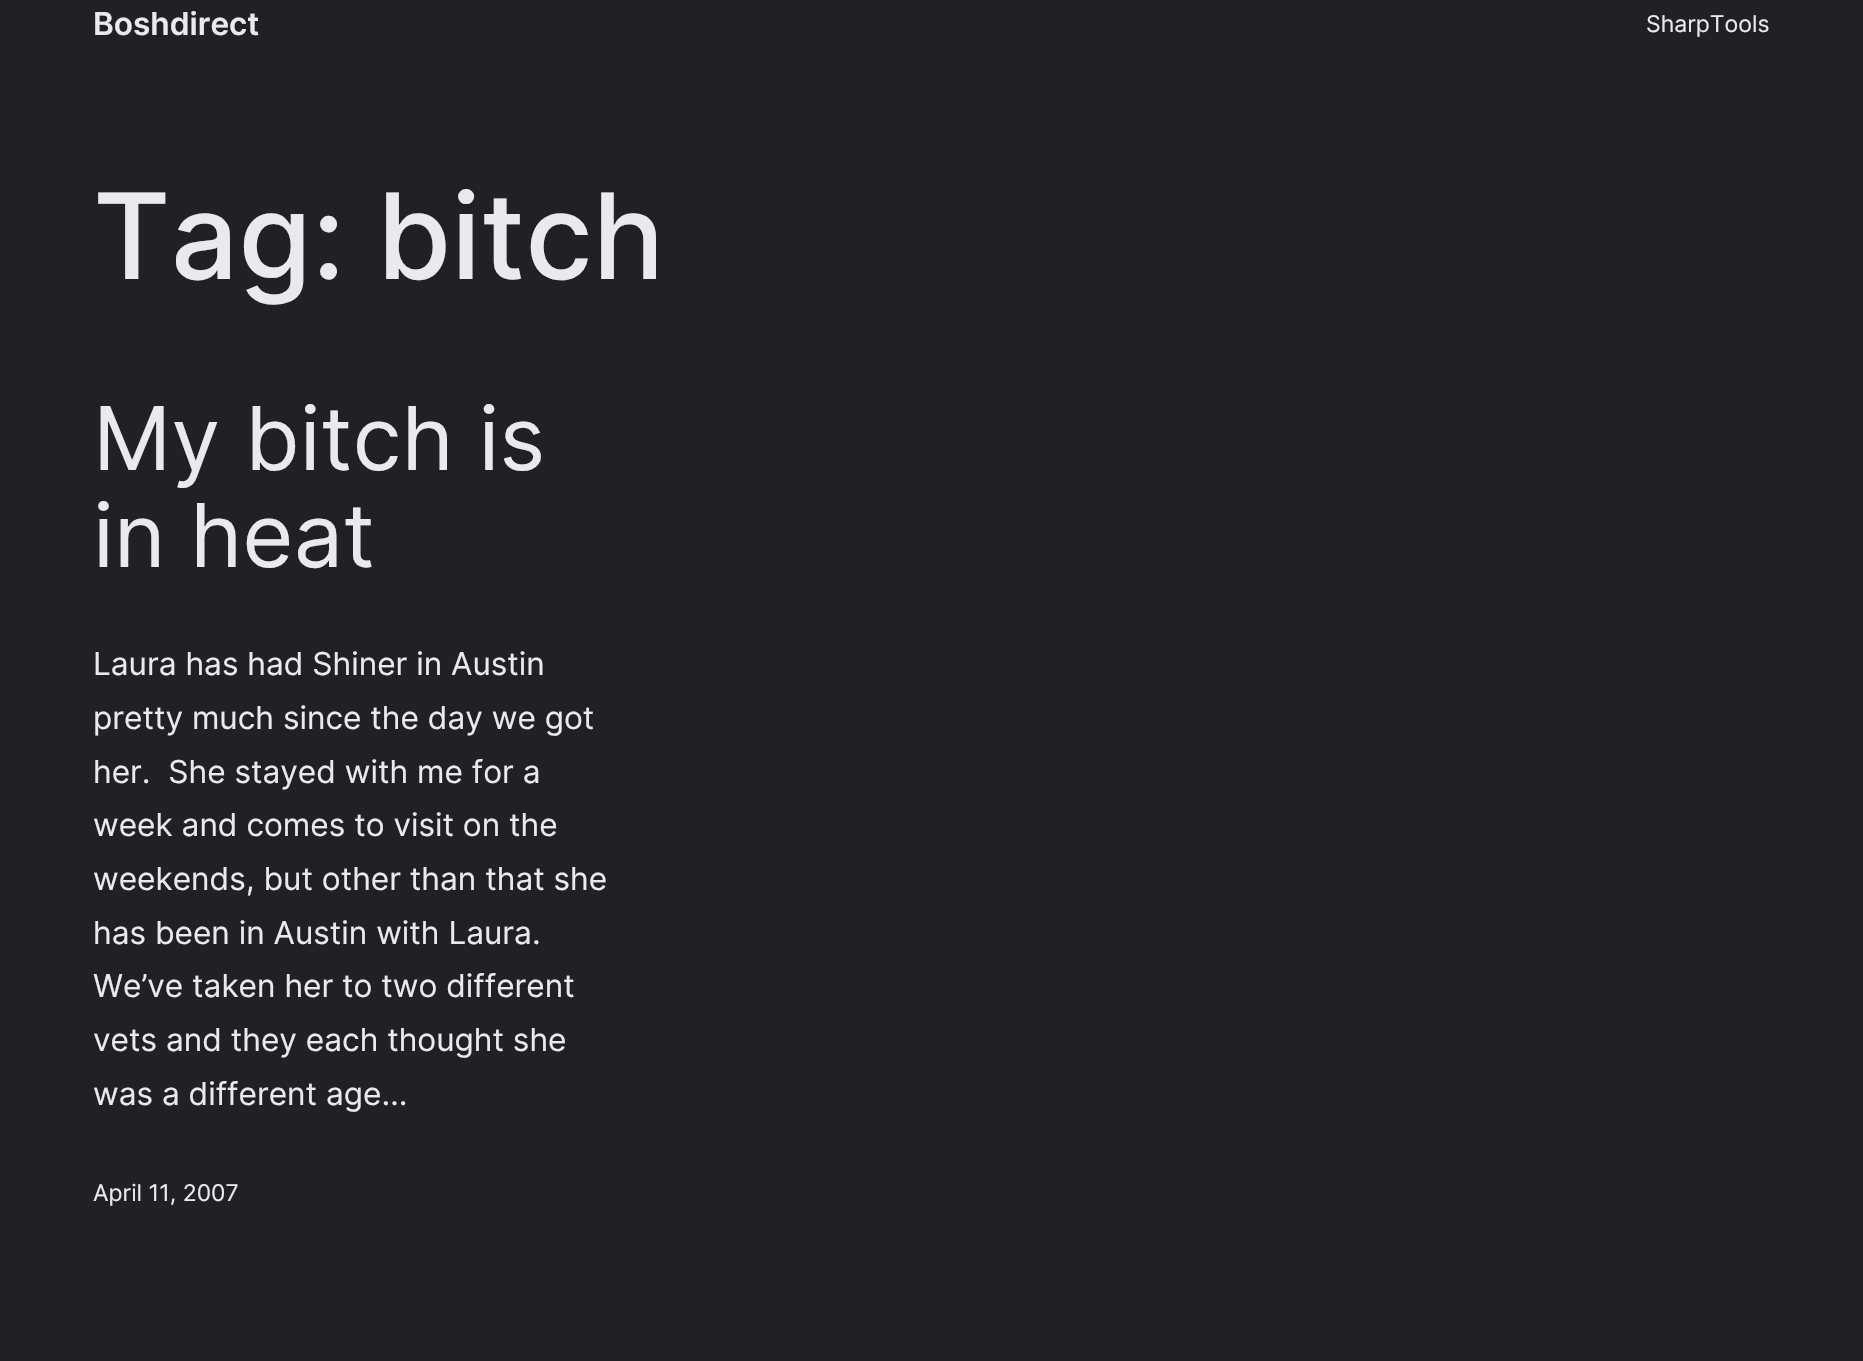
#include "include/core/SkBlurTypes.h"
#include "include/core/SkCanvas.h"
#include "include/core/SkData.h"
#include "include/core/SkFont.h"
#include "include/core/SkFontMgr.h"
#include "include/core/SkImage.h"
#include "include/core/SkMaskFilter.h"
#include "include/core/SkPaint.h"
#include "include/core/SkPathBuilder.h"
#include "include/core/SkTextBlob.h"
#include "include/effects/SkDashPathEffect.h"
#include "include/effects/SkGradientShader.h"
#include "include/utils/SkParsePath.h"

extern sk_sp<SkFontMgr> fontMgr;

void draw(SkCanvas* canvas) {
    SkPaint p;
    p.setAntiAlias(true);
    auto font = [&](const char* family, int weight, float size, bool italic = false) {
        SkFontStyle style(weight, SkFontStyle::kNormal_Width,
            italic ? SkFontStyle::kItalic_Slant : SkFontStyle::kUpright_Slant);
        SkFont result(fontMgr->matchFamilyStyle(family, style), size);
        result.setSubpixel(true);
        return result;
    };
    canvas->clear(0xFF202124);
    auto font1 = font("Inter", 600, 31.6f);
    p.setColor(0xFFE8EAED);
    canvas->drawString("Boshdirect", 93, 35, font1, p);
    auto font2 = font("Inter", 400, 23);
    canvas->drawString("SharpTools", 1646, 32, font2, p);
    auto font3 = font("Inter", 500, 119);
    canvas->drawString("Tag: bitch", 93, 279, font3, p);
    auto font4 = font("Inter", 400, 88);
    canvas->drawString("My bitch is", 93, 470, font4, p);
    canvas->drawString("in heat", 93, 567, font4, p);
    auto font5 = font("Inter", 400, 31.6f);
    {
        const struct { const char* s; float x, y; } items[] = {
            {"Laura has had Shiner in Austin", 93, 675},
            {"pretty much since the day we got", 93, 729},
            {"her.  She stayed with me for a", 93, 783},
            {"week and comes to visit on the", 93, 836},
            {"weekends, but other than that she", 93, 890},
            {"has been in Austin with Laura.", 93, 944},
            {"We’ve taken her to two different", 93, 997},
            {"vets and they each thought she", 93, 1051},
            {"was a different age…", 93, 1105},
        };
        for (auto [s, x, y] : items) {
            canvas->drawString(s, x, y, font5, p);
        }
    }
    canvas->drawString("April 11, 2007", 93, 1201, font2, p);
}
